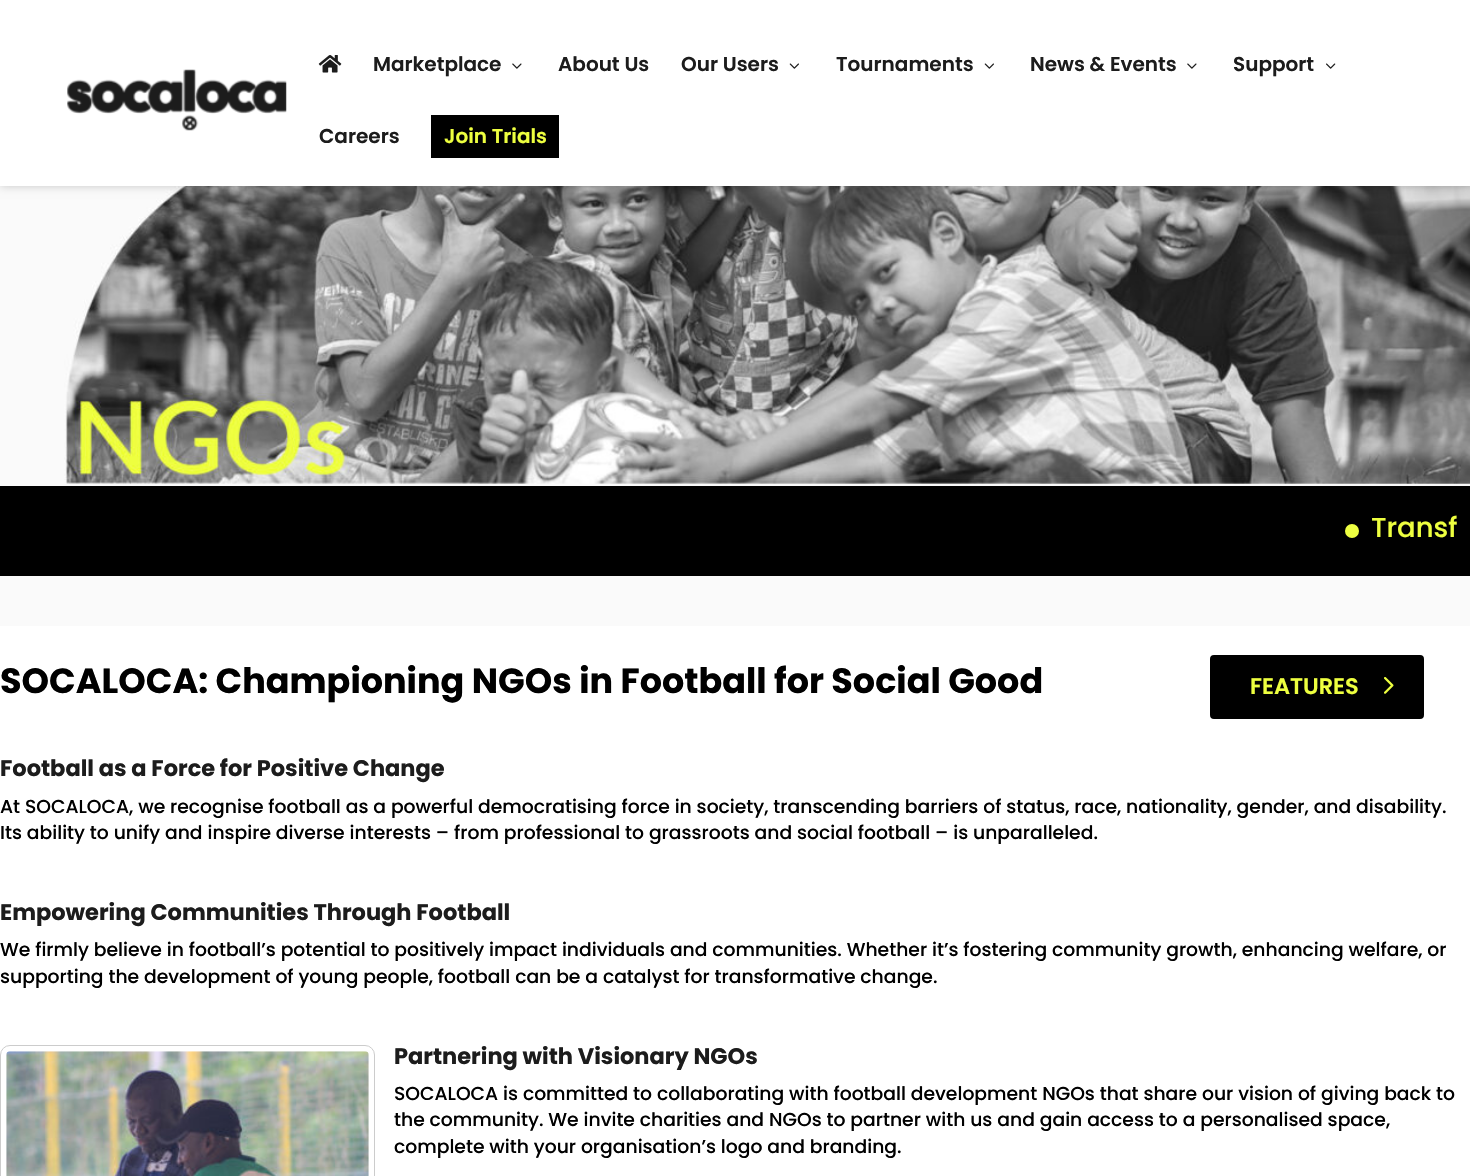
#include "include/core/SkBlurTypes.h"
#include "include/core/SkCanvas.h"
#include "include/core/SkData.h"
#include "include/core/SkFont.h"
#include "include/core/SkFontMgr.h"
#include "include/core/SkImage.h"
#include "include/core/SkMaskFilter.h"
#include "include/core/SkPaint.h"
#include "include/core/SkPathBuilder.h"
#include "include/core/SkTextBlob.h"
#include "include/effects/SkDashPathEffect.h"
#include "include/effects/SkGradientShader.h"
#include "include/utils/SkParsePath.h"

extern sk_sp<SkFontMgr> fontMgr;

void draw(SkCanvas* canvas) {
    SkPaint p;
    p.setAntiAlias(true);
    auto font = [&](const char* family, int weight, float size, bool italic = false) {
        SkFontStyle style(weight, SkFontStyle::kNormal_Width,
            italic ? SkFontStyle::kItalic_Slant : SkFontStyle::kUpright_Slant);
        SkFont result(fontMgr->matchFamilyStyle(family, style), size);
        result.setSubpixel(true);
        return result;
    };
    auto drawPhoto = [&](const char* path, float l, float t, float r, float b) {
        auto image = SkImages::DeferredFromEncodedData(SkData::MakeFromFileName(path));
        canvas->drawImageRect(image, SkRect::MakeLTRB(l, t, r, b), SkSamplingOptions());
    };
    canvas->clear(0xFFFAFAFA);
    drawPhoto("media/6.png", 0, 186, 1470, 484);
    p.setColor(0x33000000);
    p.setMaskFilter(SkMaskFilter::MakeBlur(kNormal_SkBlurStyle, 4.5f));
    canvas->drawRect(SkRect::MakeLTRB(0, 13, 1470, 186), p);
    p.setMaskFilter(nullptr);
    p.setColor(0xFFFFFFFF);
    canvas->drawRect(SkRect::MakeLTRB(0, 0, 1470, 186), p);
    drawPhoto("media/1.png", 67, 69, 287, 131);
    drawPhoto("media/2.png", 318, 55, 342, 73);
    auto font1 = font("Poppins", 600, 20);
    p.setColor(0xFF1C1C1C);
    canvas->drawString("Marketplace", 373, 71, font1, p);
    drawPhoto("media/3.png", 512, 63, 522, 69);
    canvas->drawString("About Us", 558, 71, font1, p);
    canvas->drawString("Our Users", 681, 71, font1, p);
    drawPhoto("media/4.png", 789, 63, 799, 69);
    canvas->drawString("Tournaments", 836, 71, font1, p);
    drawPhoto("media/4.png", 984, 63, 994, 69);
    canvas->drawString("News & Events", 1030, 71, font1, p);
    drawPhoto("media/3.png", 1187, 63, 1197, 69);
    canvas->drawString("Support", 1233, 71, font1, p);
    drawPhoto("media/5.png", 1326, 63, 1336, 69);
    canvas->drawString("Careers", 319, 143, font1, p);
    p.setColor(0xFF000000);
    canvas->drawRect(SkRect::MakeLTRB(431, 115, 559, 158), p);
    p.setColor(0xFFEEFF3F);
    canvas->drawString("Join Trials", 444, 143, font1, p);
    p.setColor(0xFF000000);
    canvas->drawRect(SkRect::MakeLTRB(0, 486, 1470, 576), p);
    p.setColor(0xFFEEFF41);
    canvas->drawCircle(1352, 531, 7, p);
    auto font2 = font("Poppins", 500, 27.5f);
    p.setColor(0xFFEEFF3F);
    canvas->drawString("Transf", 1371, 537, font2, p);
    p.setColor(0xFFFFFFFF);
    canvas->drawRect(SkRect::MakeLTRB(0, 626, 1470, 1176), p);
    auto font3 = font("Poppins", 700, 35);
    p.setColor(0xFF000000);
    canvas->drawString("SOCALOCA: Championing NGOs in Football for Social Good", 0, 693, font3, p);
    canvas->drawRoundRect(SkRect::MakeLTRB(1211.5f, 656.5f, 1422.5f, 717.5f), 2.5f, 2.5f, p);
    p.setStyle(SkPaint::kStroke_Style);
    p.setStrokeWidth(3);
    canvas->drawRoundRect(SkRect::MakeLTRB(1211.5f, 656.5f, 1422.5f, 717.5f), 2.5f, 2.5f, p);
    auto font4 = font("Poppins", 600, 22.5f);
    p.setStyle(SkPaint::kFill_Style);
    p.setColor(0xFFEEFF3F);
    canvas->drawString("FEATURES", 1250, 694, font4, p);
    drawPhoto("media/7.png", 1384, 677, 1394, 694);
    auto font5 = font("Poppins", 700, 22.5f);
    p.setColor(0xFF1C1C1C);
    canvas->drawString("Football as a Force for Positive Change", 0, 776, font5, p);
    auto font6 = font("Poppins", 500, 18.75f);
    p.setColor(0xFF000000);
    canvas->drawString("At SOCALOCA, we recognise football as a powerful democratising force in society, transcending barriers of status, race, nationality, gender, and disability.", 0, 813, font6, p);
    canvas->drawString("Its ability to unify and inspire diverse interests – from professional to grassroots and social football – is unparalleled.", 0, 839, font6, p);
    p.setColor(0xFF1C1C1C);
    canvas->drawString("Empowering Communities Through Football", 0, 920, font5, p);
    p.setColor(0xFF000000);
    canvas->drawString("We firmly believe in football’s potential to positively impact individuals and communities. Whether it’s fostering community growth, enhancing welfare, or", 0, 956, font6, p);
    canvas->drawString("supporting the development of young people, football can be a catalyst for transformative change.", 0, 983, font6, p);
    p.setStyle(SkPaint::kStroke_Style);
    p.setStrokeWidth(1);
    p.setColor(0xFFCCCCCC);
    canvas->drawRoundRect(SkRect::MakeLTRB(0.5f, 1045.5f, 374.5f, 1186.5f), 9.5f, 9.5f, p);
    drawPhoto("media/8.png", 6, 1051, 369, 1176);
    p.setStyle(SkPaint::kFill_Style);
    p.setColor(0xFF1C1C1C);
    canvas->drawString("Partnering with Visionary NGOs", 394, 1064, font5, p);
    p.setColor(0xFF000000);
    {
        const struct { const char* s; float x, y; } items[] = {
            {"SOCALOCA is committed to collaborating with football development NGOs that share our vision of giving back to", 394, 1100},
            {"the community. We invite charities and NGOs to partner with us and gain access to a personalised space,", 394, 1126},
            {"complete with your organisation’s logo and branding.", 394, 1153},
        };
        for (auto [s, x, y] : items) {
            canvas->drawString(s, x, y, font6, p);
        }
    }
}
